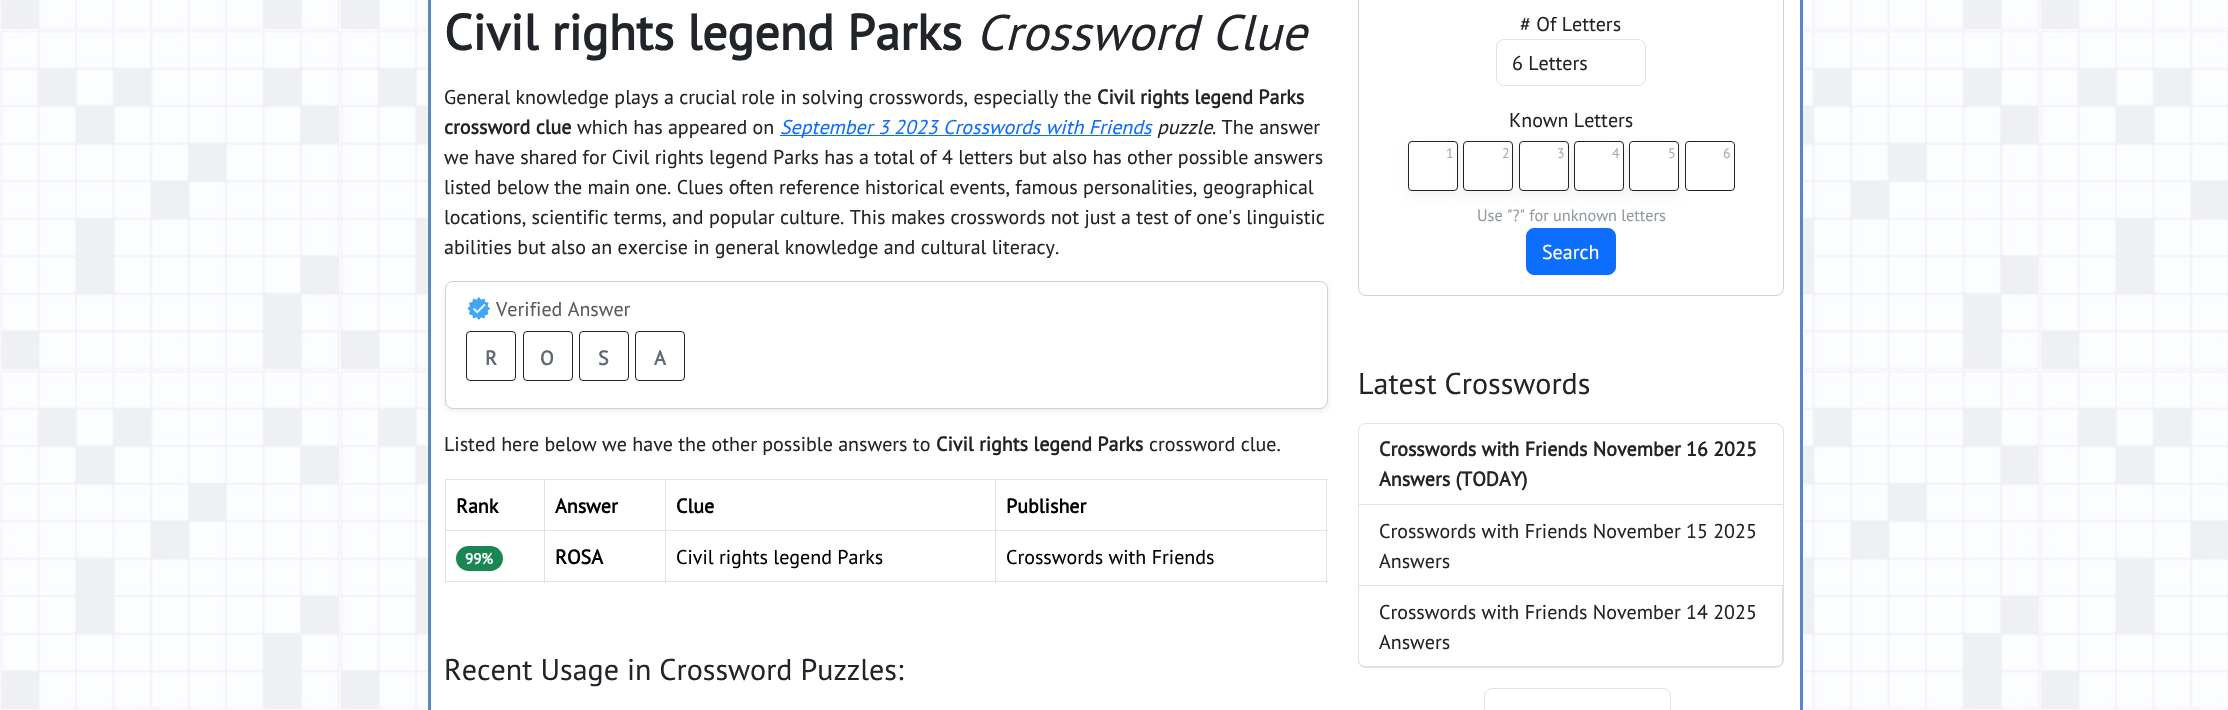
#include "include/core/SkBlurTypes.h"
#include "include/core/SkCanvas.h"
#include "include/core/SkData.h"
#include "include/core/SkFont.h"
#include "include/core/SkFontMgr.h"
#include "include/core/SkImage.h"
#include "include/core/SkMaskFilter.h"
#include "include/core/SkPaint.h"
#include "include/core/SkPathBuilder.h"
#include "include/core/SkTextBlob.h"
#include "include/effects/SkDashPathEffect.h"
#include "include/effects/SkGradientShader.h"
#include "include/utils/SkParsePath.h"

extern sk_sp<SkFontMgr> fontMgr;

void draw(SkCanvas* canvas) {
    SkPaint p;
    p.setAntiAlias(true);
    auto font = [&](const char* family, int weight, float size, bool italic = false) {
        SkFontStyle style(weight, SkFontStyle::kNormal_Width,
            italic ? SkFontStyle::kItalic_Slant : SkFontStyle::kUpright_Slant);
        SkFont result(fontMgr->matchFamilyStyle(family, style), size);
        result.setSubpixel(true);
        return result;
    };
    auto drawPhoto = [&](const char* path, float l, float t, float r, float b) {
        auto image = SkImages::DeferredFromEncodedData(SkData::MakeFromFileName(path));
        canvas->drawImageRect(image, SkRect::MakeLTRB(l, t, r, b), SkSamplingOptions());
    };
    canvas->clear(0xFFFFFFFF);
    drawPhoto("media/1.png", 0, 0, 2228, 710);
    p.setColor(0xFFFFFFFF);
    canvas->drawRect(SkRect::MakeLTRB(429.5f, -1.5f, 1801.5f, 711.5f), p);
    p.setStyle(SkPaint::kStroke_Style);
    p.setStrokeWidth(3);
    p.setColor(0xFF5589C0);
    canvas->drawRect(SkRect::MakeLTRB(429.5f, -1.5f, 1801.5f, 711.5f), p);
    auto font1 = font("PT Sans", 700, 50);
    p.setStyle(SkPaint::kFill_Style);
    p.setColor(0xFF212529);
    canvas->drawString("Civil rights legend Parks", 444, 50, font1, p);
    auto font2 = font("PT Sans", 400, 50, true);
    canvas->drawString("Crossword Clue", 976, 50, font2, p);
    auto font3 = font("PT Sans", 400, 20);
    canvas->drawString("General knowledge plays a crucial role in solving crosswords, especially the", 444, 104, font3, p);
    auto font4 = font("PT Sans", 700, 20);
    canvas->drawString("Civil rights legend Parks", 1097, 104, font4, p);
    canvas->drawString("crossword clue", 444, 134, font4, p);
    canvas->drawString("which has appeared on", 577, 134, font3, p);
    p.setColor(0xFF0D6EFD);
    canvas->drawRect(SkRect::MakeLTRB(780, 135, 1151, 136), p);
    auto font5 = font("PT Sans", 400, 20, true);
    canvas->drawString("September 3 2023 Crosswords with Friends", 780, 134, font5, p);
    p.setColor(0xFF212529);
    canvas->drawString("puzzle", 1157, 134, font5, p);
    {
        const struct { const char* s; float x, y; } items[] = {
            {". The answer", 1212, 134},
            {"we have shared for Civil rights legend Parks has a total of 4 letters but also has other possible answers", 444, 164},
            {"listed below the main one. Clues often reference historical events, famous personalities, geographical", 444, 194},
            {"locations, scientific terms, and popular culture. This makes crosswords not just a test of one's linguistic", 444, 224},
            {"abilities but also an exercise in general knowledge and cultural literacy.", 444, 254},
        };
        for (auto [s, x, y] : items) {
            canvas->drawString(s, x, y, font3, p);
        }
    }
    p.setColor(0x12000000);
    p.setMaskFilter(SkMaskFilter::MakeBlur(kNormal_SkBlurStyle, 2.5f));
    canvas->drawRoundRect(SkRect::MakeLTRB(445, 284, 1328, 411), 8, 8, p);
    p.setMaskFilter(nullptr);
    p.setColor(0xFFFFFFFF);
    canvas->drawRoundRect(SkRect::MakeLTRB(445, 281, 1328, 409), 8, 8, p);
    p.setStyle(SkPaint::kStroke_Style);
    p.setStrokeWidth(1);
    p.setColor(0x2E000000);
    canvas->drawRoundRect(SkRect::MakeLTRB(445.5f, 281.5f, 1327.5f, 408.5f), 7.5f, 7.5f, p);
    drawPhoto("media/2.png", 467, 297, 490, 320);
    p.setStyle(SkPaint::kFill_Style);
    p.setColor(0xFF595C5F);
    canvas->drawString("Verified Answer", 496, 316, font3, p);
    p.setStyle(SkPaint::kStroke_Style);
    p.setColor(0xFF212327);
    canvas->drawRoundRect(SkRect::MakeLTRB(466.5f, 331.5f, 515.5f, 380.5f), 3.5f, 3.5f, p);
    p.setStyle(SkPaint::kFill_Style);
    p.setColor(0xFF606971);
    canvas->drawString("R", 485, 365, font4, p);
    p.setStyle(SkPaint::kStroke_Style);
    p.setColor(0xFF212327);
    canvas->drawRoundRect(SkRect::MakeLTRB(523.5f, 331.5f, 572.5f, 380.5f), 3.5f, 3.5f, p);
    p.setStyle(SkPaint::kFill_Style);
    p.setColor(0xFF606971);
    canvas->drawString("O", 540, 365, font4, p);
    p.setStyle(SkPaint::kStroke_Style);
    p.setColor(0xFF212327);
    canvas->drawRoundRect(SkRect::MakeLTRB(579.5f, 331.5f, 628.5f, 380.5f), 3.5f, 3.5f, p);
    p.setStyle(SkPaint::kFill_Style);
    p.setColor(0xFF606971);
    canvas->drawString("S", 598, 365, font4, p);
    p.setStyle(SkPaint::kStroke_Style);
    p.setColor(0xFF212327);
    canvas->drawRoundRect(SkRect::MakeLTRB(635.5f, 331.5f, 684.5f, 380.5f), 3.5f, 3.5f, p);
    p.setStyle(SkPaint::kFill_Style);
    p.setColor(0xFF606971);
    canvas->drawString("A", 654, 365, font4, p);
    p.setColor(0xFF212529);
    canvas->drawString("Listed here below we have the other possible answers to", 444, 451, font3, p);
    canvas->drawString("Civil rights legend Parks", 936, 451, font4, p);
    canvas->drawString("crossword clue.", 1149, 451, font3, p);
    p.setColor(0xFFDEE2E6);
    canvas->drawRect(SkRect::MakeLTRB(445, 479, 1328, 480), p);
    p.setColor(0xFF000000);
    {
        const struct { const char* s; float x, y; } items[] = {
            {"Rank", 456, 513},
            {"Answer", 555, 513},
            {"Clue", 676, 513},
            {"Publisher", 1006, 513},
        };
        for (auto [s, x, y] : items) {
            canvas->drawString(s, x, y, font4, p);
        }
    }
    {
        const struct { float l, t, r, b; SkColor color; } items[] = {
            {445, 530, 1328, 531, 0xFFDEE2E6},
            {445, 581, 1328, 582, 0xFFDEE2E6},
            {445, 479, 446, 583, 0xFFDEE2E6},
        };
        for (auto [l, t, r, b, color] : items) {
            p.setColor(color);
            canvas->drawRect(SkRect::MakeLTRB(l, t, r, b), p);
        }
    }
    p.setColor(0xFF198754);
    canvas->drawRoundRect(SkRect::MakeLTRB(456, 546, 503, 571), 12.5f, 12.5f, p);
    auto font6 = font("PT Sans", 700, 15);
    p.setColor(0xFFFFFFFF);
    canvas->drawString("99%", 465, 564, font6, p);
    p.setColor(0xFFDEE2E6);
    canvas->drawRect(SkRect::MakeLTRB(544, 479, 545, 583), p);
    p.setColor(0xFF000000);
    canvas->drawString("ROSA", 555, 564, font4, p);
    p.setColor(0xFFDEE2E6);
    canvas->drawRect(SkRect::MakeLTRB(665, 479, 666, 583), p);
    p.setColor(0xFF000000);
    canvas->drawString("Civil rights legend Parks", 676, 564, font3, p);
    p.setColor(0xFFDEE2E6);
    canvas->drawRect(SkRect::MakeLTRB(1326, 479, 1327, 583), p);
    canvas->drawRect(SkRect::MakeLTRB(995, 479, 996, 583), p);
    p.setColor(0xFF000000);
    canvas->drawString("Crosswords with Friends", 1006, 564, font3, p);
    auto font7 = font("PT Sans", 400, 30);
    p.setColor(0xFF212529);
    canvas->drawString("Recent Usage in Crossword Puzzles:", 444, 680, font7, p);
    p.setStyle(SkPaint::kStroke_Style);
    p.setColor(0xFFD2D2D2);
    canvas->drawRoundRect(SkRect::MakeLTRB(1358.5f, -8.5f, 1783.5f, 295.5f), 7.5f, 7.5f, p);
    p.setStyle(SkPaint::kFill_Style);
    p.setColor(0xFF212529);
    canvas->drawString("# Of Letters", 1520, 31, font3, p);
    p.setStyle(SkPaint::kStroke_Style);
    p.setColor(0xFFDEE2E6);
    canvas->drawRoundRect(SkRect::MakeLTRB(1496.5f, 39.5f, 1645.5f, 85.5f), 7.5f, 7.5f, p);
    p.setStyle(SkPaint::kFill_Style);
    p.setColor(0xFF212529);
    canvas->drawString("6 Letters", 1512, 70, font3, p);
    canvas->drawString("Known Letters", 1509, 127, font3, p);
    p.setColor(0x0D000000);
    p.setMaskFilter(SkMaskFilter::MakeBlur(kNormal_SkBlurStyle, 5));
    canvas->drawRoundRect(SkRect::MakeLTRB(1408, 146, 1458, 196), 4, 4, p);
    p.setMaskFilter(nullptr);
    p.setColor(0xFFFFFFFF);
    canvas->drawRoundRect(SkRect::MakeLTRB(1408.5f, 141.5f, 1457.5f, 190.5f), 3.5f, 3.5f, p);
    p.setStyle(SkPaint::kStroke_Style);
    p.setColor(0xFF212327);
    canvas->drawRoundRect(SkRect::MakeLTRB(1408.5f, 141.5f, 1457.5f, 190.5f), 3.5f, 3.5f, p);
    auto font8 = font("PT Sans", 400, 14);
    p.setStyle(SkPaint::kFill_Style);
    p.setColor(0xFFA7ADB4);
    canvas->drawString("1", 1446, 158, font8, p);
    p.setColor(0x0D000000);
    p.setMaskFilter(SkMaskFilter::MakeBlur(kNormal_SkBlurStyle, 5));
    canvas->drawRoundRect(SkRect::MakeLTRB(1463, 146, 1513, 196), 4, 4, p);
    p.setMaskFilter(nullptr);
    p.setColor(0xFFFFFFFF);
    canvas->drawRoundRect(SkRect::MakeLTRB(1463.5f, 141.5f, 1512.5f, 190.5f), 3.5f, 3.5f, p);
    p.setStyle(SkPaint::kStroke_Style);
    p.setColor(0xFF212327);
    canvas->drawRoundRect(SkRect::MakeLTRB(1463.5f, 141.5f, 1512.5f, 190.5f), 3.5f, 3.5f, p);
    p.setStyle(SkPaint::kFill_Style);
    p.setColor(0xFFA7ADB4);
    canvas->drawString("2", 1502, 158, font8, p);
    p.setColor(0x0D000000);
    p.setMaskFilter(SkMaskFilter::MakeBlur(kNormal_SkBlurStyle, 5));
    canvas->drawRoundRect(SkRect::MakeLTRB(1519, 146, 1569, 196), 4, 4, p);
    p.setMaskFilter(nullptr);
    p.setColor(0xFFFFFFFF);
    canvas->drawRoundRect(SkRect::MakeLTRB(1519.5f, 141.5f, 1568.5f, 190.5f), 3.5f, 3.5f, p);
    p.setStyle(SkPaint::kStroke_Style);
    p.setColor(0xFF212327);
    canvas->drawRoundRect(SkRect::MakeLTRB(1519.5f, 141.5f, 1568.5f, 190.5f), 3.5f, 3.5f, p);
    p.setStyle(SkPaint::kFill_Style);
    p.setColor(0xFFA7ADB4);
    canvas->drawString("3", 1557, 158, font8, p);
    p.setColor(0x0D000000);
    p.setMaskFilter(SkMaskFilter::MakeBlur(kNormal_SkBlurStyle, 5));
    canvas->drawRoundRect(SkRect::MakeLTRB(1574, 146, 1624, 196), 4, 4, p);
    p.setMaskFilter(nullptr);
    p.setColor(0xFFFFFFFF);
    canvas->drawRoundRect(SkRect::MakeLTRB(1574.5f, 141.5f, 1623.5f, 190.5f), 3.5f, 3.5f, p);
    p.setStyle(SkPaint::kStroke_Style);
    p.setColor(0xFF212327);
    canvas->drawRoundRect(SkRect::MakeLTRB(1574.5f, 141.5f, 1623.5f, 190.5f), 3.5f, 3.5f, p);
    p.setStyle(SkPaint::kFill_Style);
    p.setColor(0xFFA7ADB4);
    canvas->drawString("4", 1612, 158, font8, p);
    p.setColor(0x0D000000);
    p.setMaskFilter(SkMaskFilter::MakeBlur(kNormal_SkBlurStyle, 5));
    canvas->drawRoundRect(SkRect::MakeLTRB(1629, 146, 1679, 196), 4, 4, p);
    p.setMaskFilter(nullptr);
    p.setColor(0xFFFFFFFF);
    canvas->drawRoundRect(SkRect::MakeLTRB(1629.5f, 141.5f, 1678.5f, 190.5f), 3.5f, 3.5f, p);
    p.setStyle(SkPaint::kStroke_Style);
    p.setColor(0xFF212327);
    canvas->drawRoundRect(SkRect::MakeLTRB(1629.5f, 141.5f, 1678.5f, 190.5f), 3.5f, 3.5f, p);
    p.setStyle(SkPaint::kFill_Style);
    p.setColor(0xFFA7ADB4);
    canvas->drawString("5", 1668, 158, font8, p);
    p.setStyle(SkPaint::kStroke_Style);
    p.setColor(0xFF212327);
    canvas->drawRoundRect(SkRect::MakeLTRB(1685.5f, 141.5f, 1734.5f, 190.5f), 3.5f, 3.5f, p);
    p.setStyle(SkPaint::kFill_Style);
    p.setColor(0xFFA7ADB4);
    canvas->drawString("6", 1723, 158, font8, p);
    auto font9 = font("PT Sans", 400, 16.25f);
    p.setColor(0xFF9199A1);
    canvas->drawString("Use \"?\" for unknown letters", 1477, 221, font9, p);
    p.setColor(0xFF0D6EFD);
    canvas->drawRoundRect(SkRect::MakeLTRB(1526.5f, 228.5f, 1615.5f, 274.5f), 7.5f, 7.5f, p);
    p.setStyle(SkPaint::kStroke_Style);
    canvas->drawRoundRect(SkRect::MakeLTRB(1526.5f, 228.5f, 1615.5f, 274.5f), 7.5f, 7.5f, p);
    p.setStyle(SkPaint::kFill_Style);
    p.setColor(0xFFFFFFFF);
    canvas->drawString("Search", 1542, 259, font3, p);
    p.setColor(0xFF212529);
    canvas->drawString("Latest Crosswords", 1358, 394, font7, p);
    p.setStyle(SkPaint::kStroke_Style);
    p.setColor(0xFFDEE2E6);
    canvas->drawPath(SkPathBuilder().moveTo(1366, 423.5f).lineTo(1776, 423.5f).cubicTo(1780, 423.5f, 1783.5f, 427, 1783.5f, 431).lineTo(1783.5f, 504.5f).lineTo(1358.5f, 504.5f).lineTo(1358.5f, 431).cubicTo(1358.5f, 427, 1362, 423.5f, 1366, 423.5f).close().detach(), p);
    p.setStyle(SkPaint::kFill_Style);
    p.setColor(0xFF212529);
    canvas->drawString("Crosswords with Friends November 16 2025", 1379, 456, font4, p);
    canvas->drawString("Answers (TODAY)", 1379, 486, font4, p);
    {
        const struct { float l, t, r, b; SkColor color; } items[] = {
            {1783, 505, 1784, 586, 0xFFDEE2E6},
            {1358, 585, 1784, 586, 0xFFDEE2E6},
            {1358, 505, 1359, 586, 0xFFDEE2E6},
        };
        for (auto [l, t, r, b, color] : items) {
            p.setColor(color);
            canvas->drawRect(SkRect::MakeLTRB(l, t, r, b), p);
        }
    }
    p.setColor(0xFF212529);
    canvas->drawString("Crosswords with Friends November 15 2025", 1379, 538, font3, p);
    canvas->drawString("Answers", 1379, 568, font3, p);
    p.setColor(0xFFDEE2E6);
    canvas->drawPath(SkPathBuilder(SkPathFillType::kEvenOdd).moveTo(1358, 586).lineTo(1784, 586).lineTo(1784, 660).cubicTo(1784, 664, 1780, 668, 1776, 668).lineTo(1365, 668).cubicTo(1361, 668, 1358, 664, 1358, 660).close().moveTo(1359, 586).lineTo(1782, 586).lineTo(1782, 660).cubicTo(1782, 663, 1780, 666, 1776, 666).lineTo(1365, 666).cubicTo(1362, 666, 1359, 663, 1359, 660).close().detach(), p);
    p.setColor(0xFF212529);
    canvas->drawString("Crosswords with Friends November 14 2025", 1379, 619, font3, p);
    canvas->drawString("Answers", 1379, 649, font3, p);
    p.setStyle(SkPaint::kStroke_Style);
    p.setColor(0xFFDEE2E6);
    canvas->drawRoundRect(SkRect::MakeLTRB(1484.5f, 688.5f, 1670.5f, 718.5f), 7.5f, 7.5f, p);
}
